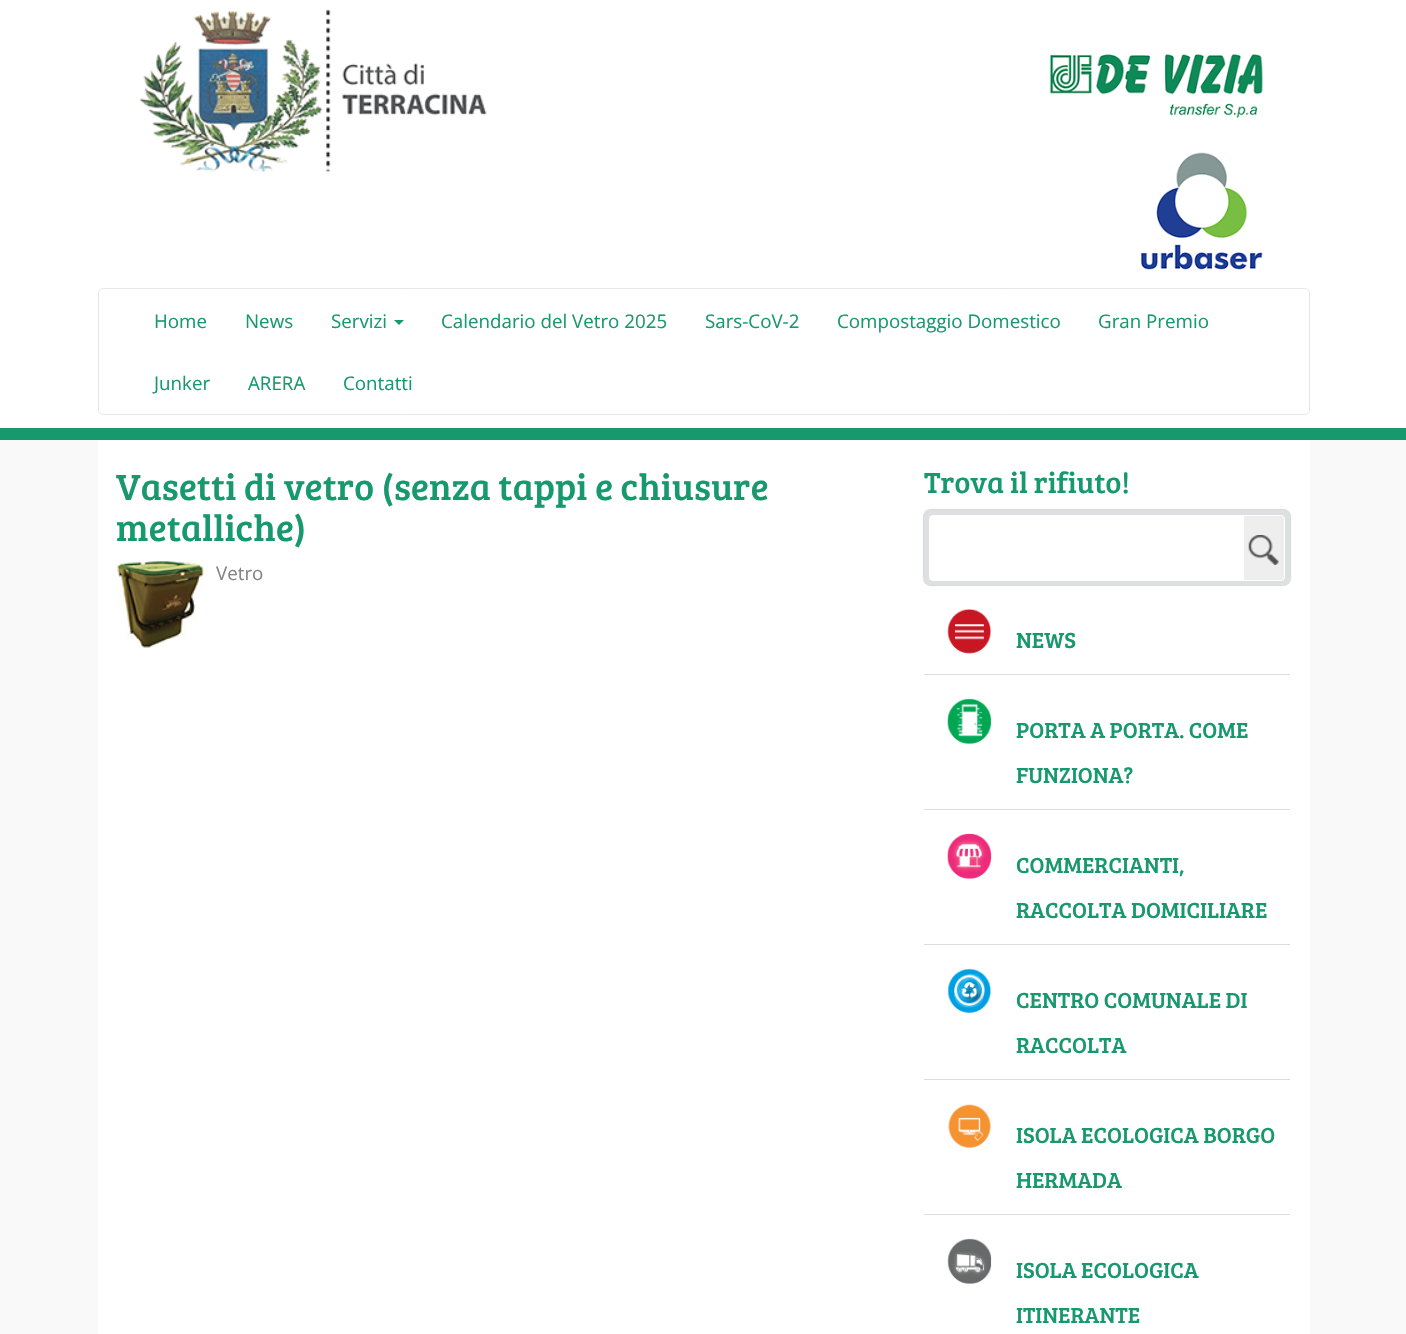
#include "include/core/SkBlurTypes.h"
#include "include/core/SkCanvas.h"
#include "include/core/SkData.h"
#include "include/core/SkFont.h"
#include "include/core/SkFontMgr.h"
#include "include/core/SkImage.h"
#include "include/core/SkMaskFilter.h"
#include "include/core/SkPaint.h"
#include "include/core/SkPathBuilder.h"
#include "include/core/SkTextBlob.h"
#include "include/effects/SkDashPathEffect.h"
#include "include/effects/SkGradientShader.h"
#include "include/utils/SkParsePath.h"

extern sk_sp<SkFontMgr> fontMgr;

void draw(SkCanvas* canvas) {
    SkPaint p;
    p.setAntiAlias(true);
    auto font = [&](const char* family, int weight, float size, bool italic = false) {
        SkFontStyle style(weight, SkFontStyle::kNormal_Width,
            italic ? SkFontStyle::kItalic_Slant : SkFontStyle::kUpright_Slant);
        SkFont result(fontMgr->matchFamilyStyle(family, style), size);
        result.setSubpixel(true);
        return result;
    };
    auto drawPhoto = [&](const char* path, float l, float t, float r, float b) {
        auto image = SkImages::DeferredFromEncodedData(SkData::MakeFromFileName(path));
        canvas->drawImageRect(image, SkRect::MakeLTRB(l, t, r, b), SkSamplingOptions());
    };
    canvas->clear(0xFFFFFFFF);
    p.setColor(0xFF17996D);
    canvas->drawRect(SkRect::MakeLTRB(0, 428, 1406, 440), p);
    drawPhoto("media/1.png", 140, 9, 487, 172);
    drawPhoto("media/2.png", 1049, 54, 1263, 119);
    drawPhoto("media/3.png", 1141, 152, 1263, 270);
    p.setStyle(SkPaint::kStroke_Style);
    p.setStrokeWidth(1);
    p.setColor(0xFFE7E7E7);
    canvas->drawRoundRect(SkRect::MakeLTRB(98.5f, 288.5f, 1309.5f, 414.5f), 4.5f, 4.5f, p);
    auto font1 = font("Open Sans", 400, 18.75f);
    p.setStyle(SkPaint::kFill_Style);
    p.setColor(0xFF17996D);
    {
        const struct { const char* s; float x, y; } items[] = {
            {"Home", 154, 328},
            {"News", 245, 328},
            {"Servizi", 331, 328},
        };
        for (auto [s, x, y] : items) {
            canvas->drawString(s, x, y, font1, p);
        }
    }
    canvas->drawPath(SkPathBuilder().moveTo(394, 320).lineTo(404, 320).lineTo(399, 325).close().detach(), p);
    {
        const struct { const char* s; float x, y; } items[] = {
            {"Calendario del Vetro 2025", 441, 328},
            {"Sars-CoV-2", 705, 328},
            {"Compostaggio Domestico", 837, 328},
            {"Gran Premio", 1098, 328},
            {"Junker", 154, 390},
            {"ARERA", 248, 390},
            {"Contatti", 343, 390},
        };
        for (auto [s, x, y] : items) {
            canvas->drawString(s, x, y, font1, p);
        }
    }
    p.setColor(0xFFF9F9F9);
    canvas->drawRect(SkRect::MakeLTRB(0, 440, 1406, 1334), p);
    p.setColor(0xFFFFFFFF);
    canvas->drawRect(SkRect::MakeLTRB(98, 440, 1310, 1334), p);
    auto font2 = font("Bree Serif", 400, 37.5f);
    p.setColor(0xFF17996D);
    canvas->drawString("Vasetti di vetro (senza tappi e chiusure", 116, 500, font2, p);
    canvas->drawString("metalliche)", 116, 541, font2, p);
    drawPhoto("media/4.png", 116, 560, 204, 648);
    p.setColor(0xFF838383);
    canvas->drawString("Vetro", 216, 580, font1, p);
    auto font3 = font("Bree Serif", 400, 30);
    p.setColor(0xFF17996D);
    canvas->drawString("Trova il rifiuto!", 924, 493, font3, p);
    p.setColor(0xFFD2DBD9);
    p.setMaskFilter(SkMaskFilter::MakeBlur(kNormal_SkBlurStyle, 0.5f));
    canvas->drawRoundRect(SkRect::MakeLTRB(923, 509, 1291, 586), 8, 8, p);
    p.setMaskFilter(nullptr);
    p.setColor(0xFFDDDFE1);
    canvas->drawRoundRect(SkRect::MakeLTRB(924, 510, 1290, 585), 6, 6, p);
    p.setColor(0xFFFFFFFF);
    canvas->drawRoundRect(SkRect::MakeLTRB(929.5f, 515.5f, 1284.5f, 580.5f), 3.5f, 3.5f, p);
    p.setStyle(SkPaint::kStroke_Style);
    canvas->drawRoundRect(SkRect::MakeLTRB(929.5f, 515.5f, 1284.5f, 580.5f), 3.5f, 3.5f, p);
    p.setStyle(SkPaint::kFill_Style);
    p.setColor(0xFFEEEEEE);
    canvas->drawPath(SkPathBuilder().moveTo(1244, 516).lineTo(1281.5f, 516).cubicTo(1283, 516, 1284, 517, 1284, 518.5f).lineTo(1284, 577.5f).cubicTo(1284, 579, 1283, 580, 1281.5f, 580).lineTo(1244, 580).close().detach(), p);
    drawPhoto("media/5.png", 1248, 535, 1279, 565);
    p.setColor(0xFFDDDDDD);
    canvas->drawRect(SkRect::MakeLTRB(924, 674, 1290, 675), p);
    drawPhoto("media/6.png", 947, 609, 991, 654);
    auto font4 = font("Bree Serif", 400, 22.5f);
    p.setColor(0xFF17996D);
    canvas->drawString("NEWS", 1016, 648, font4, p);
    p.setColor(0xFFDDDDDD);
    canvas->drawRect(SkRect::MakeLTRB(924, 809, 1290, 810), p);
    drawPhoto("media/7.png", 947, 698, 992, 744);
    p.setColor(0xFF17996D);
    canvas->drawString("PORTA A PORTA. COME", 1016, 738, font4, p);
    canvas->drawString("FUNZIONA?", 1016, 783, font4, p);
    p.setColor(0xFFDDDDDD);
    canvas->drawRect(SkRect::MakeLTRB(924, 944, 1290, 945), p);
    drawPhoto("media/8.png", 947, 833, 992, 879);
    p.setColor(0xFF17996D);
    canvas->drawString("COMMERCIANTI,", 1016, 873, font4, p);
    canvas->drawString("RACCOLTA DOMICILIARE", 1016, 918, font4, p);
    p.setColor(0xFFDDDDDD);
    canvas->drawRect(SkRect::MakeLTRB(924, 1079, 1290, 1080), p);
    drawPhoto("media/9.png", 947, 968, 991, 1013);
    p.setColor(0xFF17996D);
    canvas->drawString("CENTRO COMUNALE DI", 1016, 1008, font4, p);
    canvas->drawString("RACCOLTA", 1016, 1053, font4, p);
    p.setColor(0xFFDDDDDD);
    canvas->drawRect(SkRect::MakeLTRB(924, 1214, 1290, 1215), p);
    drawPhoto("media/10.png", 948, 1104, 991, 1148);
    p.setColor(0xFF17996D);
    canvas->drawString("ISOLA ECOLOGICA BORGO", 1016, 1143, font4, p);
    canvas->drawString("HERMADA", 1016, 1188, font4, p);
    drawPhoto("media/11.png", 947, 1238, 992, 1284);
    canvas->drawString("ISOLA ECOLOGICA", 1016, 1278, font4, p);
    canvas->drawString("ITINERANTE", 1016, 1323, font4, p);
}
